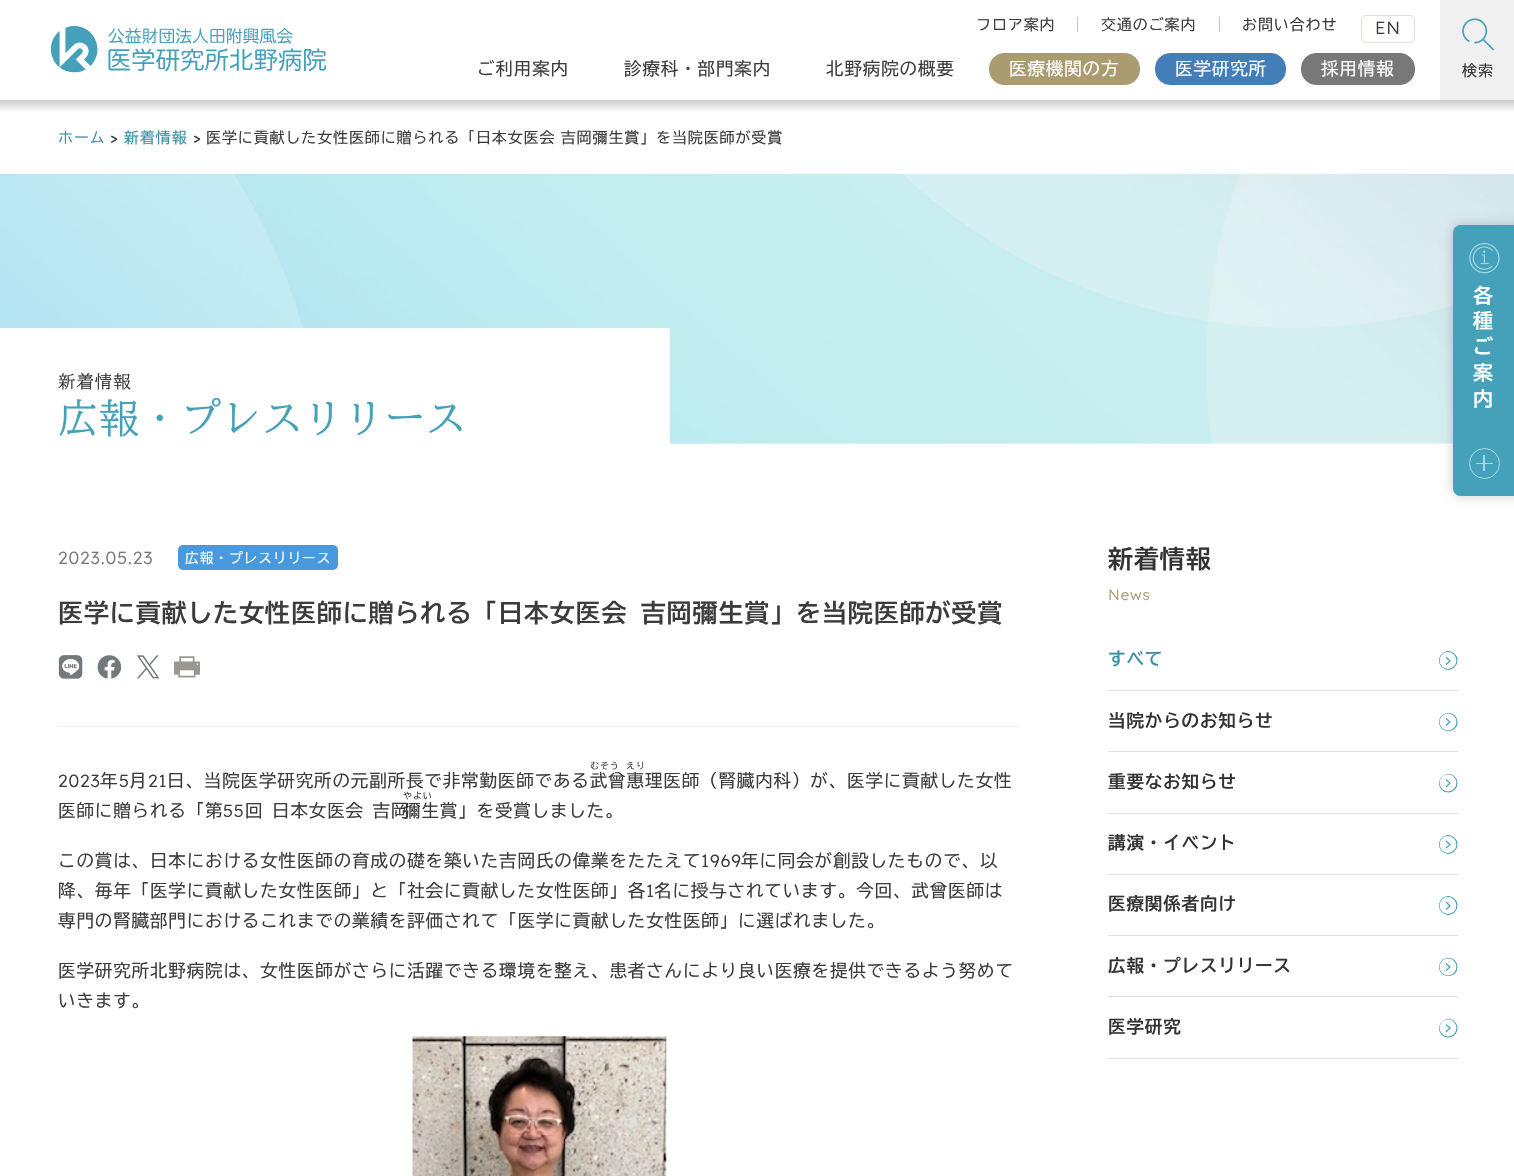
#include "include/core/SkBlurTypes.h"
#include "include/core/SkCanvas.h"
#include "include/core/SkData.h"
#include "include/core/SkFont.h"
#include "include/core/SkFontMgr.h"
#include "include/core/SkImage.h"
#include "include/core/SkMaskFilter.h"
#include "include/core/SkPaint.h"
#include "include/core/SkPathBuilder.h"
#include "include/core/SkTextBlob.h"
#include "include/effects/SkDashPathEffect.h"
#include "include/effects/SkGradientShader.h"
#include "include/utils/SkParsePath.h"

extern sk_sp<SkFontMgr> fontMgr;

void draw(SkCanvas* canvas) {
    SkPaint p;
    p.setAntiAlias(true);
    auto font = [&](const char* family, int weight, float size, bool italic = false) {
        SkFontStyle style(weight, SkFontStyle::kNormal_Width,
            italic ? SkFontStyle::kItalic_Slant : SkFontStyle::kUpright_Slant);
        SkFont result(fontMgr->matchFamilyStyle(family, style), size);
        result.setSubpixel(true);
        return result;
    };
    auto drawTracked = [&](const char* s, float x, float y, const SkFont& font, const SkPaint& ink, float letter, float word) {
        std::vector<SkGlyphID> glyphs(font.countText(s, strlen(s), SkTextEncoding::kUTF8));
        std::vector<float> xs(glyphs.size());
        font.textToGlyphs(s, strlen(s), SkTextEncoding::kUTF8, glyphs);
        font.getXPos(glyphs, xs, x);
        float extra = 0;
        for (size_t i = 0; i < glyphs.size(); i++) {
            xs[i] += extra;
            extra += letter + word * (glyphs[i] == font.unicharToGlyph(' '));
        }
        canvas->drawTextBlob(SkTextBlob::MakeFromPosHGlyphs(glyphs, xs, y, font), 0, 0, ink);
    };
    auto drawPhoto = [&](const char* path, float l, float t, float r, float b) {
        auto image = SkImages::DeferredFromEncodedData(SkData::MakeFromFileName(path));
        canvas->drawImageRect(image, SkRect::MakeLTRB(l, t, r, b), SkSamplingOptions());
    };
    canvas->clear(0xFFFFFFFF);
    drawPhoto("media/1.png", 50, 26, 326, 73);
    auto font1 = font("BIZ UDGothic", 400, 15);
    p.setColor(0xFF3C3C3C);
    drawTracked("フロア案内", 976, 30, font1, p, 0.88f, 0);
    p.setColor(0xFFB4B4B4);
    drawTracked("｜", 1070, 30, font1, p, 0.88f, 0);
    p.setColor(0xFF3C3C3C);
    drawTracked("交通のご案内", 1101, 30, font1, p, 0.88f, 0);
    p.setColor(0xFFB4B4B4);
    drawTracked("｜", 1212, 30, font1, p, 0.88f, 0);
    p.setColor(0xFF3C3C3C);
    drawTracked("お問い合わせ", 1242, 30, font1, p, 0.88f, 0);
    p.setStyle(SkPaint::kStroke_Style);
    p.setStrokeWidth(1);
    p.setColor(0xFFE2DFD8);
    canvas->drawRoundRect(SkRect::MakeLTRB(1361.5f, 15.5f, 1414.5f, 42.5f), 4.5f, 4.5f, p);
    auto font2 = font("Lexend", 300, 17.5f);
    p.setStyle(SkPaint::kFill_Style);
    p.setColor(0xFF3C3C3C);
    drawTracked("EN", 1375, 34, font2, p, 0.88f, 0);
    auto font3 = font("BIZ UDGothic", 400, 17.5f);
    {
        const struct { const char* s; float x, y; } items[] = {
            {"ご利用案内", 477, 75},
            {"診療科・部門案内", 624, 75},
            {"北野病院の概要", 826, 75},
        };
        for (auto [s, x, y] : items) {
            drawTracked(s, x, y, font3, p, 0.88f, 0);
        }
    }
    p.setColor(0xFFAB9B71);
    canvas->drawRoundRect(SkRect::MakeLTRB(989.5f, 53.5f, 1139.5f, 84.5f), 14.5f, 14.5f, p);
    p.setStyle(SkPaint::kStroke_Style);
    canvas->drawRoundRect(SkRect::MakeLTRB(989.5f, 53.5f, 1139.5f, 84.5f), 14.5f, 14.5f, p);
    p.setStyle(SkPaint::kFill_Style);
    p.setColor(0xFFFFFFFF);
    drawTracked("医療機関の方", 1009, 75, font3, p, 0.88f, 0);
    p.setColor(0xFF447EB9);
    canvas->drawRoundRect(SkRect::MakeLTRB(1155.5f, 53.5f, 1285.5f, 84.5f), 14.5f, 14.5f, p);
    p.setStyle(SkPaint::kStroke_Style);
    canvas->drawRoundRect(SkRect::MakeLTRB(1155.5f, 53.5f, 1285.5f, 84.5f), 14.5f, 14.5f, p);
    p.setStyle(SkPaint::kFill_Style);
    p.setColor(0xFFFFFFFF);
    drawTracked("医学研究所", 1175, 75, font3, p, 0.88f, 0);
    p.setColor(0xFF787878);
    canvas->drawRoundRect(SkRect::MakeLTRB(1301.5f, 53.5f, 1414.5f, 84.5f), 14.5f, 14.5f, p);
    p.setStyle(SkPaint::kStroke_Style);
    canvas->drawRoundRect(SkRect::MakeLTRB(1301.5f, 53.5f, 1414.5f, 84.5f), 14.5f, 14.5f, p);
    p.setStyle(SkPaint::kFill_Style);
    p.setColor(0xFFFFFFFF);
    drawTracked("採用情報", 1321, 75, font3, p, 0.88f, 0);
    p.setColor(0xFFF0F0F0);
    canvas->drawRect(SkRect::MakeLTRB(1440, 0, 1514, 100), p);
    drawPhoto("media/2.png", 1462, 18, 1494, 51);
    p.setColor(0xFF333333);
    drawTracked("検索", 1462, 76, font1, p, 0.88f, 0);
    {
        const SkColor colors[] = {0xFFCCCCCC, 0xFFFFFFFF};
        const float stops[] = {0, 1};
        const SkPoint ends[] = {{758, 100}, {758, 113}};
        p.setShader(SkGradientShader::MakeLinear(ends, colors, stops, 2, SkTileMode::kClamp));
        p.setAlpha(255);
    }
    canvas->drawRect(SkRect::MakeLTRB(0, 100, 1514, 112), p);
    p.setShader(nullptr);
    p.setColor(0xFF3B90A6);
    drawTracked("ホーム", 58, 143, font1, p, 0.88f, 0);
    auto font4 = font("Lexend", 400, 15);
    p.setColor(0xFF3C3C3C);
    drawTracked(">", 110, 143, font4, p, 0.88f, 0);
    p.setColor(0xFF3B90A6);
    drawTracked("新着情報", 124, 143, font1, p, 0.88f, 0);
    p.setColor(0xFF3C3C3C);
    drawTracked(">", 193, 143, font4, p, 0.88f, 0);
    drawTracked("医学に貢献した女性医師に贈られる「日本女医会 吉岡彌生賞」を当院医師が受賞", 206, 143, font1, p, 0.88f, -3);
    drawPhoto("media/3.png", 0, 173, 1514, 444);
    p.setColor(0xFFFFFFFF);
    canvas->drawRect(SkRect::MakeLTRB(58, 328, 670, 444), p);
    auto font5 = font("BIZ UDMincho", 400, 17.5f);
    p.setColor(0xFF333333);
    drawTracked("新着情報", 58, 388, font5, p, 0.88f, 0);
    p.setColor(0xFFFFFFFF);
    canvas->drawRect(SkRect::MakeLTRB(0, 328, 58, 444), p);
    auto font6 = font("BIZ UDMincho", 400, 40);
    p.setColor(0xFF44A1B9);
    drawTracked("広報・プレスリリース", 58, 433, font6, p, 0.88f, 0);
    p.setColor(0xFF787878);
    drawTracked("2023.05.23", 58, 564, font2, p, 0.88f, 0);
    p.setColor(0xFF4899DD);
    canvas->drawRoundRect(SkRect::MakeLTRB(178, 545, 338, 570), 5, 5, p);
    auto font7 = font("BIZ UDGothic", 400, 13.75f);
    p.setColor(0xFFFFFFFF);
    drawTracked("広報・プレスリリース", 185, 563, font7, p, 0.88f, 0);
    auto font8 = font("BIZ UDGothic", 700, 25);
    p.setColor(0xFF3C3C3C);
    drawTracked("医学に貢献した女性医師に贈られる「日本女医会 吉岡彌生賞」を当院医師が受賞", 58, 622, font8, p, 0.88f, 0);
    drawPhoto("media/4.png", 58, 655, 83, 679);
    drawPhoto("media/5.png", 97, 655, 122, 679);
    drawPhoto("media/6.png", 136, 655, 160, 679);
    drawPhoto("media/7.png", 174, 656, 200, 678);
    p.setColor(0xFFF4F3F2);
    canvas->drawRect(SkRect::MakeLTRB(58, 726, 1020, 727), p);
    auto font9 = font("BIZ UDGothic", 400, 9);
    p.setColor(0xFF3C3C3C);
    drawTracked("むそう", 590, 769, font9, p, 0.88f, 0);
    drawTracked("えり", 626, 769, font9, p, 0.88f, 0);
    drawTracked("2023", 58, 787, font2, p, 0.88f, 0);
    drawTracked("年", 100, 787, font3, p, 0.88f, 0);
    drawTracked("5", 119, 787, font2, p, 0.88f, 0);
    drawTracked("月", 129, 787, font3, p, 0.88f, 0);
    drawTracked("21", 148, 787, font2, p, 0.88f, 0);
    drawTracked("日、当院医学研究所の元副所長で非常勤医師である武曾惠理医師（腎臓内科）が、医学に貢献した女性", 167, 787, font3, p, 0.88f, 0);
    drawTracked("医師に贈られる「第", 58, 817, font3, p, 0.88f, 0);
    drawTracked("55", 223, 817, font2, p, 0.88f, 0);
    drawTracked("回 日本女医会 吉岡", 245, 817, font3, p, 0.88f, -1);
    drawTracked("やよい", 403, 799, font9, p, 0.88f, 0);
    drawTracked("彌生賞」を受賞しました。", 403, 817, font3, p, 0.88f, 0);
    drawTracked("この賞は、日本における女性医師の育成の礎を築いた吉岡氏の偉業をたたえて", 58, 867, font3, p, 0.88f, 0);
    drawTracked("1969", 701, 867, font2, p, 0.88f, 0);
    drawTracked("年に同会が創設したもので、以", 741, 867, font3, p, 0.88f, 0);
    drawTracked("降、毎年「医学に貢献した女性医師」と「社会に貢献した女性医師」各", 58, 897, font3, p, 0.88f, 0);
    drawTracked("1", 646, 897, font2, p, 0.88f, 0);
    {
        const struct { const char* s; float x, y; } items[] = {
            {"名に授与されています。今回、武曾医師は", 654, 897},
            {"専門の腎臓部門におけるこれまでの業績を評価されて「医学に貢献した女性医師」に選ばれました。", 58, 927},
            {"医学研究所北野病院は、女性医師がさらに活躍できる環境を整え、患者さんにより良い医療を提供できるよう努めて", 58, 977},
            {"いきます。", 58, 1007},
        };
        for (auto [s, x, y] : items) {
            drawTracked(s, x, y, font3, p, 0.88f, 0);
        }
    }
    drawPhoto("media/8.png", 412, 1036, 667, 1176);
    p.setColor(0xFF333333);
    drawTracked("新着情報", 1108, 568, font8, p, 0.88f, 0);
    auto font10 = font("Lexend", 300, 15);
    p.setColor(0xFFAB9B71);
    drawTracked("News", 1108, 600, font10, p, 0.88f, 0);
    p.setColor(0xFFE2DFD8);
    canvas->drawRect(SkRect::MakeLTRB(1108, 690, 1458, 691), p);
    auto font11 = font("BIZ UDGothic", 700, 17.5f);
    p.setColor(0xFF3B90A6);
    drawTracked("すべて", 1108, 665, font11, p, 0.88f, 0);
    p.setStyle(SkPaint::kStroke_Style);
    p.setStrokeWidth(1.2f);
    p.setColor(0xFF44A1B9);
    canvas->drawPath(SkPathBuilder().moveTo(1446, 657).lineTo(1450, 661).lineTo(1446, 664.5f).detach(), p);
    canvas->save();
    canvas->clipPath(SkPathBuilder().moveTo(1448.5f, 651).cubicTo(1453.5f, 651, 1458, 655.5f, 1458, 660.5f).cubicTo(1458, 665.5f, 1453.5f, 670, 1448.5f, 670).cubicTo(1443.5f, 670, 1439, 665.5f, 1439, 660.5f).cubicTo(1439, 655.5f, 1443.5f, 651, 1448.5f, 651).close().detach(), true);
    canvas->drawCircle(1448, 660.5f, 9, p);
    canvas->restore();
    p.setStyle(SkPaint::kFill_Style);
    p.setColor(0xFFE2DFD8);
    canvas->drawRect(SkRect::MakeLTRB(1108, 751, 1458, 752), p);
    p.setColor(0xFF333333);
    drawTracked("当院からのお知らせ", 1108, 727, font11, p, 0.88f, 0);
    p.setStyle(SkPaint::kStroke_Style);
    p.setColor(0xFF44A1B9);
    canvas->drawPath(SkPathBuilder().moveTo(1446, 718.5f).lineTo(1450, 722).lineTo(1446, 725.5f).detach(), p);
    canvas->save();
    canvas->clipPath(SkPathBuilder().moveTo(1448, 713).lineTo(1449, 713).cubicTo(1454, 713, 1458, 717, 1458, 722).cubicTo(1458, 727, 1454, 731, 1449, 731).lineTo(1448, 731).cubicTo(1443, 731, 1439, 727, 1439, 722).cubicTo(1439, 717, 1443, 713, 1448, 713).close().detach(), true);
    canvas->drawCircle(1448, 722, 9, p);
    canvas->restore();
    p.setStyle(SkPaint::kFill_Style);
    p.setColor(0xFFE2DFD8);
    canvas->drawRect(SkRect::MakeLTRB(1108, 813, 1458, 814), p);
    p.setColor(0xFF333333);
    drawTracked("重要なお知らせ", 1108, 788, font11, p, 0.88f, 0);
    p.setStyle(SkPaint::kStroke_Style);
    p.setColor(0xFF44A1B9);
    canvas->drawPath(SkPathBuilder().moveTo(1446, 779.5f).lineTo(1450, 783).lineTo(1446, 787).detach(), p);
    canvas->save();
    canvas->clipPath(SkPathBuilder().moveTo(1448.5f, 774).cubicTo(1453.5f, 774, 1458, 778.5f, 1458, 783.5f).cubicTo(1458, 788.5f, 1453.5f, 793, 1448.5f, 793).cubicTo(1443.5f, 793, 1439, 788.5f, 1439, 783.5f).cubicTo(1439, 778.5f, 1443.5f, 774, 1448.5f, 774).close().detach(), true);
    canvas->drawCircle(1448, 783, 9, p);
    canvas->restore();
    p.setStyle(SkPaint::kFill_Style);
    p.setColor(0xFFE2DFD8);
    canvas->drawRect(SkRect::MakeLTRB(1108, 874, 1458, 875), p);
    p.setColor(0xFF333333);
    drawTracked("講演・イベント", 1108, 849, font11, p, 0.88f, 0);
    p.setStyle(SkPaint::kStroke_Style);
    p.setColor(0xFF44A1B9);
    canvas->drawPath(SkPathBuilder().moveTo(1446, 841).lineTo(1450, 844.5f).lineTo(1446, 848).detach(), p);
    canvas->save();
    canvas->clipPath(SkPathBuilder().moveTo(1448.5f, 835).cubicTo(1453.5f, 835, 1458, 839.5f, 1458, 844.5f).cubicTo(1458, 849.5f, 1453.5f, 854, 1448.5f, 854).cubicTo(1443.5f, 854, 1439, 849.5f, 1439, 844.5f).cubicTo(1439, 839.5f, 1443.5f, 835, 1448.5f, 835).close().detach(), true);
    canvas->drawCircle(1448, 844.5f, 9, p);
    canvas->restore();
    p.setStyle(SkPaint::kFill_Style);
    p.setColor(0xFFE2DFD8);
    canvas->drawRect(SkRect::MakeLTRB(1108, 935, 1458, 936), p);
    p.setColor(0xFF333333);
    drawTracked("医療関係者向け", 1108, 910, font11, p, 0.88f, 0);
    p.setStyle(SkPaint::kStroke_Style);
    p.setColor(0xFF44A1B9);
    canvas->drawPath(SkPathBuilder().moveTo(1446, 902).lineTo(1450, 906).lineTo(1446, 909.5f).detach(), p);
    canvas->save();
    canvas->clipPath(SkPathBuilder().moveTo(1448.5f, 896).cubicTo(1453.5f, 896, 1458, 900.5f, 1458, 905.5f).cubicTo(1458, 910.5f, 1453.5f, 915, 1448.5f, 915).cubicTo(1443.5f, 915, 1439, 910.5f, 1439, 905.5f).cubicTo(1439, 900.5f, 1443.5f, 896, 1448.5f, 896).close().detach(), true);
    canvas->drawCircle(1448, 905.5f, 9, p);
    canvas->restore();
    p.setStyle(SkPaint::kFill_Style);
    p.setColor(0xFFE2DFD8);
    canvas->drawRect(SkRect::MakeLTRB(1108, 996, 1458, 997), p);
    p.setColor(0xFF333333);
    drawTracked("広報・プレスリリース", 1108, 972, font11, p, 0.88f, 0);
    p.setStyle(SkPaint::kStroke_Style);
    p.setColor(0xFF44A1B9);
    canvas->drawPath(SkPathBuilder().moveTo(1446, 963.5f).lineTo(1450, 967).lineTo(1446, 970.5f).detach(), p);
    canvas->save();
    canvas->clipPath(SkPathBuilder().moveTo(1448, 958).lineTo(1449, 958).cubicTo(1454, 958, 1458, 962, 1458, 967).cubicTo(1458, 972, 1454, 976, 1449, 976).lineTo(1448, 976).cubicTo(1443, 976, 1439, 972, 1439, 967).cubicTo(1439, 962, 1443, 958, 1448, 958).close().detach(), true);
    canvas->drawCircle(1448, 967, 9, p);
    canvas->restore();
    p.setStyle(SkPaint::kFill_Style);
    p.setColor(0xFFE2DFD8);
    canvas->drawRect(SkRect::MakeLTRB(1108, 1058, 1458, 1059), p);
    p.setColor(0xFF333333);
    drawTracked("医学研究", 1108, 1033, font11, p, 0.88f, 0);
    p.setStyle(SkPaint::kStroke_Style);
    p.setColor(0xFF44A1B9);
    canvas->drawPath(SkPathBuilder().moveTo(1446, 1024.5f).lineTo(1450, 1028).lineTo(1446, 1032).detach(), p);
    canvas->save();
    canvas->clipPath(SkPathBuilder().moveTo(1448.5f, 1019).cubicTo(1453.5f, 1019, 1458, 1023.5f, 1458, 1028.5f).cubicTo(1458, 1033.5f, 1453.5f, 1038, 1448.5f, 1038).cubicTo(1443.5f, 1038, 1439, 1033.5f, 1439, 1028.5f).cubicTo(1439, 1023.5f, 1443.5f, 1019, 1448.5f, 1019).close().detach(), true);
    canvas->drawCircle(1448, 1028, 9, p);
    canvas->restore();
    p.setStyle(SkPaint::kFill_Style);
    p.setColor(0x33000000);
    p.setMaskFilter(SkMaskFilter::MakeBlur(kNormal_SkBlurStyle, 6));
    canvas->drawRoundRect(SkRect::MakeLTRB(1453, 225, 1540, 496), 8, 8, p);
    p.setMaskFilter(nullptr);
    p.setColor(0xFF44A1B9);
    canvas->drawPath(SkPathBuilder().moveTo(1461, 225).lineTo(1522, 225).lineTo(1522, 496).lineTo(1461, 496).cubicTo(1456.5f, 496, 1453, 492.5f, 1453, 488).lineTo(1453, 233).cubicTo(1453, 228.5f, 1456.5f, 225, 1461, 225).close().detach(), p);
    drawPhoto("media/9.png", 1469, 243, 1500, 274);
    auto font12 = font("BIZ UDGothic", 700, 20);
    p.setColor(0xFFFFFFFF);
    {
        const struct { const char* s; float x, y; } items[] = {
            {"各", 1473, 303},
            {"種", 1473, 328},
            {"ご", 1473, 354},
            {"案", 1473, 380},
            {"内", 1473, 406},
        };
        for (auto [s, x, y] : items) {
            drawTracked(s, x, y, font12, p, 0.88f, 0);
        }
    }
    p.setStyle(SkPaint::kStroke_Style);
    p.setStrokeWidth(1);
    p.setColor(0xFFA5DAE8);
    canvas->drawCircle(1484.5f, 463.5f, 15, p);
    p.setStyle(SkPaint::kFill_Style);
    canvas->drawRect(SkRect::MakeLTRB(1476, 463, 1493, 464), p);
    canvas->drawRect(SkRect::MakeLTRB(1483, 455, 1485, 471), p);
}
